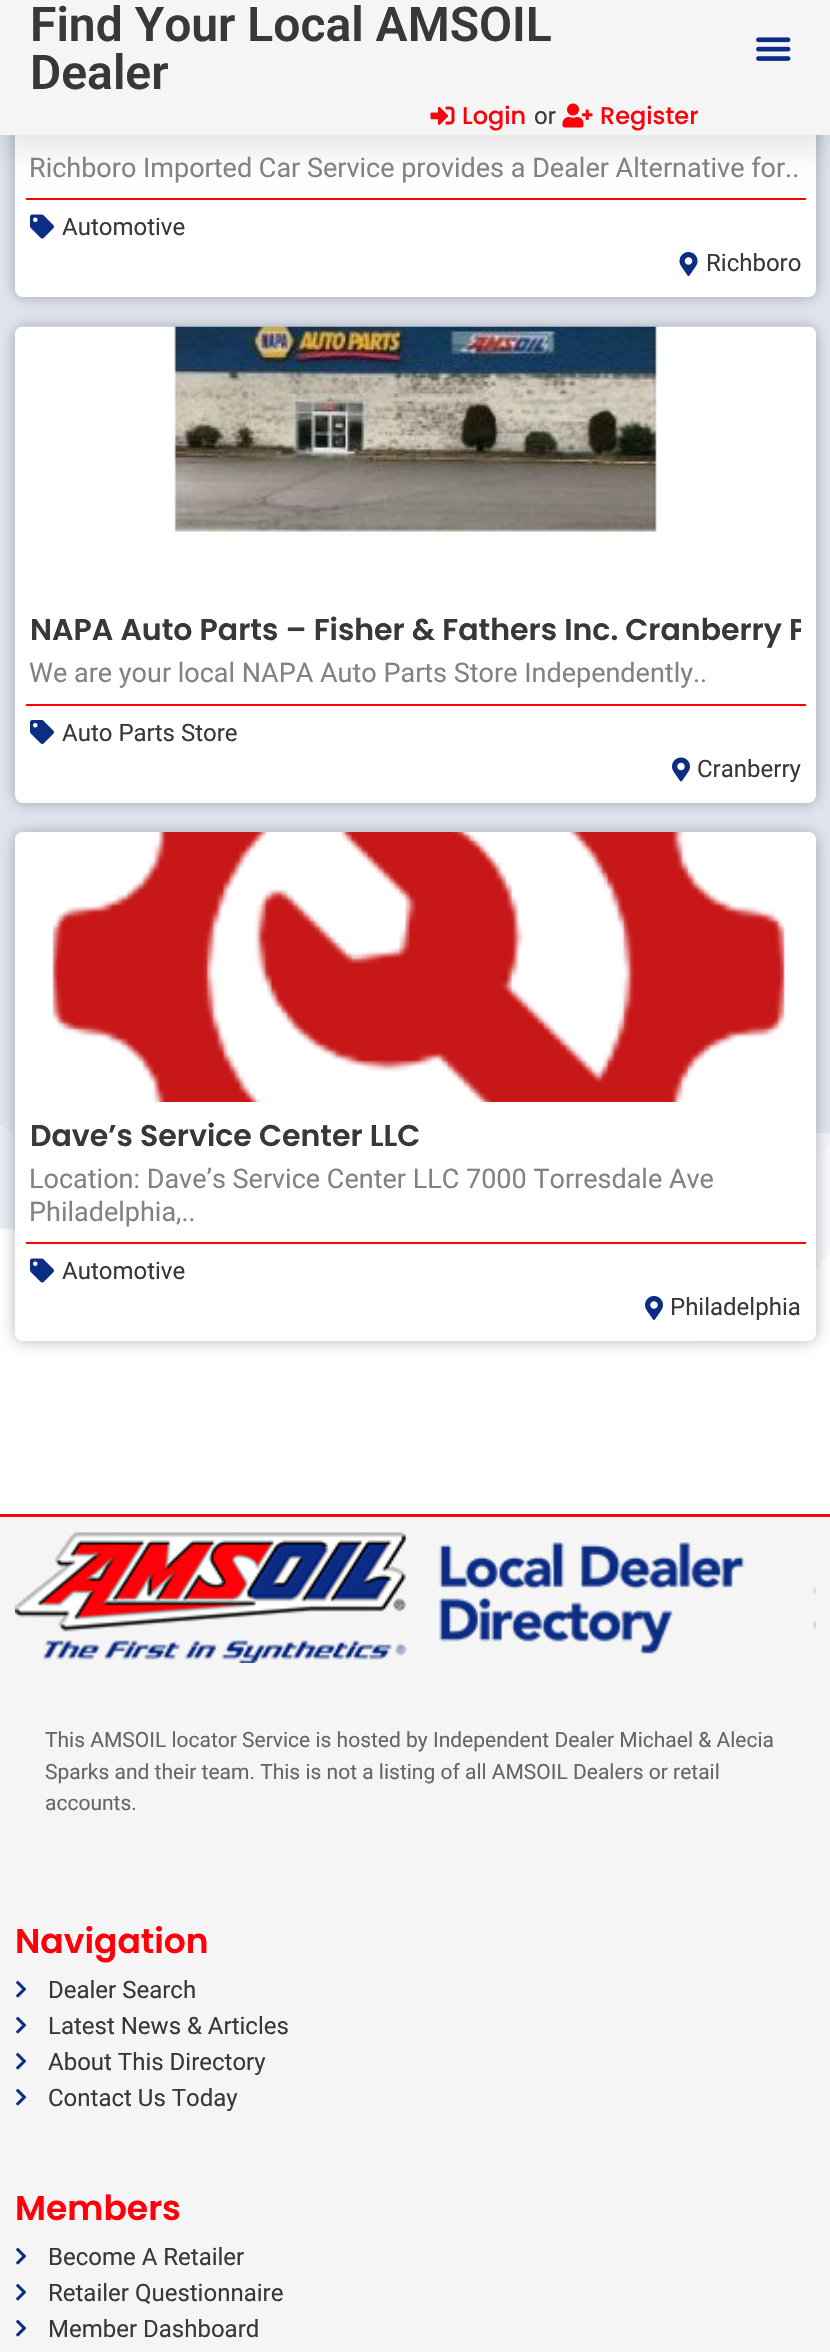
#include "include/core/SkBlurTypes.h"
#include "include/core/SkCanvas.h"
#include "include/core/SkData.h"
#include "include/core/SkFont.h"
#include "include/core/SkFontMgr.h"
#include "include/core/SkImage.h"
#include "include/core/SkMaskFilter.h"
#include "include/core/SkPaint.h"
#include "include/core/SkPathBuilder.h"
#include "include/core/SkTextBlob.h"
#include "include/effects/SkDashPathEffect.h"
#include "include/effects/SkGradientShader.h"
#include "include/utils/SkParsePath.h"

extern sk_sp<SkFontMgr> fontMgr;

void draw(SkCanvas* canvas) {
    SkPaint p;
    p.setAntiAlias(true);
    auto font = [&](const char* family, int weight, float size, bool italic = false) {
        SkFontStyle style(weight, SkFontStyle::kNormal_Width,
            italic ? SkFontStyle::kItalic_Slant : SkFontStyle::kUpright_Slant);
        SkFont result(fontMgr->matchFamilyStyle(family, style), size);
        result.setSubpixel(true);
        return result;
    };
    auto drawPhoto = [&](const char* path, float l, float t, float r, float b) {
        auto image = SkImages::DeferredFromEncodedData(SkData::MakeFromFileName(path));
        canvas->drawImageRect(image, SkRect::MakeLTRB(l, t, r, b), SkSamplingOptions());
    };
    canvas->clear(0xFFFFFFFF);
    p.setColor(0xFFE0E5F0);
    canvas->drawRect(SkRect::MakeLTRB(0, 135, 830, 1343), p);
    p.setColor(0x4A000000);
    p.setMaskFilter(SkMaskFilter::MakeBlur(kNormal_SkBlurStyle, 7.5f));
    canvas->drawRoundRect(SkRect::MakeLTRB(15, -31, 816, 297), 8, 8, p);
    p.setMaskFilter(nullptr);
    p.setColor(0xFFFFFFFF);
    canvas->drawRoundRect(SkRect::MakeLTRB(15, -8, 816, 297), 8, 8, p);
    p.setColor(0x1A000000);
    p.setMaskFilter(SkMaskFilter::MakeBlur(kNormal_SkBlurStyle, 15));
    canvas->drawRect(SkRect::MakeLTRB(0, 15, 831, 150), p);
    p.setMaskFilter(nullptr);
    p.setColor(0xFFF5F5F5);
    canvas->drawRect(SkRect::MakeLTRB(0, 0, 830, 135), p);
    auto font1 = font("Roboto", 600, 48);
    p.setColor(0xFF383838);
    canvas->drawString("Find Your Local AMSOIL", 30, 41, font1, p);
    canvas->drawString("Dealer", 30, 89, font1, p);
    drawPhoto("media/1.png", 756, 37, 791, 61);
    drawPhoto("media/2.png", 430, 106, 455, 125);
    auto font2 = font("Poppins", 500, 24);
    p.setColor(0xFFFD000A);
    canvas->drawString("Login", 462, 124, font2, p);
    auto font3 = font("Roboto", 400, 24);
    p.setColor(0xFF383838);
    canvas->drawString("or", 534, 124, font3, p);
    drawPhoto("media/3.png", 562, 103, 593, 128);
    p.setColor(0xFFFD000A);
    canvas->drawString("Register", 600, 124, font2, p);
    auto font4 = font("Roboto", 400, 27);
    p.setColor(0xFF848181);
    canvas->drawString("Richboro Imported Car Service provides a Dealer Alternative for..", 29, 177, font4, p);
    p.setColor(0xFFFD000A);
    canvas->drawRect(SkRect::MakeLTRB(26, 198, 806, 200), p);
    drawPhoto("media/4.png", 30, 214, 54, 239);
    p.setColor(0xFF383838);
    canvas->drawString("Automotive", 62, 235, font3, p);
    drawPhoto("media/5.png", 679, 252, 698, 276);
    canvas->drawString("Richboro", 706, 271, font3, p);
    p.setColor(0x4A000000);
    p.setMaskFilter(SkMaskFilter::MakeBlur(kNormal_SkBlurStyle, 7.5f));
    canvas->drawRoundRect(SkRect::MakeLTRB(15, 327, 816, 803), 8, 8, p);
    p.setMaskFilter(nullptr);
    p.setColor(0xFFFFFFFF);
    canvas->drawRoundRect(SkRect::MakeLTRB(15, 327, 816, 803), 8, 8, p);
    drawPhoto("media/6.png", 15, 326, 816, 537);
    canvas->save();
    canvas->clipRect(SkRect::MakeLTRB(30, 612, 801, 650));
    auto font5 = font("Poppins", 600, 30);
    p.setColor(0xFF383838);
    canvas->drawString("NAPA Auto Parts – Fisher & Fathers Inc. Cranberry P", 30, 640, font5, p);
    canvas->restore();
    p.setColor(0xFF848181);
    canvas->drawString("We are your local NAPA Auto Parts Store Independently..", 29, 682, font4, p);
    p.setColor(0xFFFD000A);
    canvas->drawRect(SkRect::MakeLTRB(26, 704, 806, 706), p);
    drawPhoto("media/7.png", 30, 720, 54, 744);
    p.setColor(0xFF383838);
    canvas->drawString("Auto Parts Store", 62, 741, font3, p);
    drawPhoto("media/8.png", 672, 757, 690, 782);
    canvas->drawString("Cranberry", 697, 777, font3, p);
    drawPhoto("media/11.png", 0, 1125, 830, 1371);
    p.setColor(0x4A000000);
    p.setMaskFilter(SkMaskFilter::MakeBlur(kNormal_SkBlurStyle, 7.5f));
    canvas->drawRoundRect(SkRect::MakeLTRB(15, 833, 816, 1341), 8, 8, p);
    p.setMaskFilter(nullptr);
    p.setColor(0xFFFFFFFF);
    canvas->drawRoundRect(SkRect::MakeLTRB(15, 833, 816, 1341), 8, 8, p);
    drawPhoto("media/9.png", 15, 832, 816, 1102);
    p.setColor(0xFF383838);
    canvas->drawString("Dave’s Service Center LLC", 30, 1146, font5, p);
    p.setColor(0xFF848181);
    canvas->drawString("Location: Dave’s Service Center LLC 7000 Torresdale Ave", 29, 1188, font4, p);
    canvas->drawString("Philadelphia,..", 29, 1221, font4, p);
    p.setColor(0xFFFD000A);
    canvas->drawRect(SkRect::MakeLTRB(26, 1242, 806, 1244), p);
    drawPhoto("media/4.png", 30, 1258, 54, 1283);
    p.setColor(0xFF383838);
    canvas->drawString("Automotive", 62, 1279, font3, p);
    drawPhoto("media/10.png", 645, 1296, 663, 1320);
    canvas->drawString("Philadelphia", 670, 1315, font3, p);
    p.setColor(0xFFF5F5F5);
    canvas->drawRect(SkRect::MakeLTRB(0, 1517, 830, 2352), p);
    p.setColor(0xFFFD000A);
    canvas->drawRect(SkRect::MakeLTRB(0, 1514, 830, 1517), p);
    drawPhoto("media/12.png", 15, 1532, 816, 1663);
    auto font6 = font("Roboto", 400, 21);
    p.setColor(0xFF656565);
    {
        const struct { const char* s; float x, y; } items[] = {
            {"This AMSOIL locator Service is hosted by Independent Dealer Michael & Alecia", 45, 1747},
            {"Sparks and their team. This is not a listing of all AMSOIL Dealers or retail", 45, 1779},
            {"accounts.", 45, 1810},
        };
        for (auto [s, x, y] : items) {
            canvas->drawString(s, x, y, font6, p);
        }
    }
    auto font7 = font("Poppins", 600, 34.5f);
    p.setColor(0xFFFD000A);
    canvas->drawString("Navigation", 15, 1953, font7, p);
    drawPhoto("media/13.png", 16, 1980, 27, 1998);
    p.setColor(0xFF383838);
    canvas->drawString("Dealer Search", 48, 1998, font3, p);
    drawPhoto("media/13.png", 16, 2016, 27, 2034);
    canvas->drawString("Latest News & Articles", 48, 2034, font3, p);
    drawPhoto("media/13.png", 16, 2052, 27, 2070);
    canvas->drawString("About This Directory", 48, 2070, font3, p);
    drawPhoto("media/13.png", 16, 2088, 27, 2106);
    canvas->drawString("Contact Us Today", 48, 2106, font3, p);
    p.setColor(0xFFFD000A);
    canvas->drawString("Members", 15, 2220, font7, p);
    drawPhoto("media/13.png", 16, 2247, 27, 2265);
    p.setColor(0xFF383838);
    canvas->drawString("Become A Retailer", 48, 2265, font3, p);
    drawPhoto("media/13.png", 16, 2283, 27, 2301);
    canvas->drawString("Retailer Questionnaire", 48, 2301, font3, p);
    drawPhoto("media/13.png", 16, 2319, 27, 2337);
    canvas->drawString("Member Dashboard", 48, 2337, font3, p);
}
